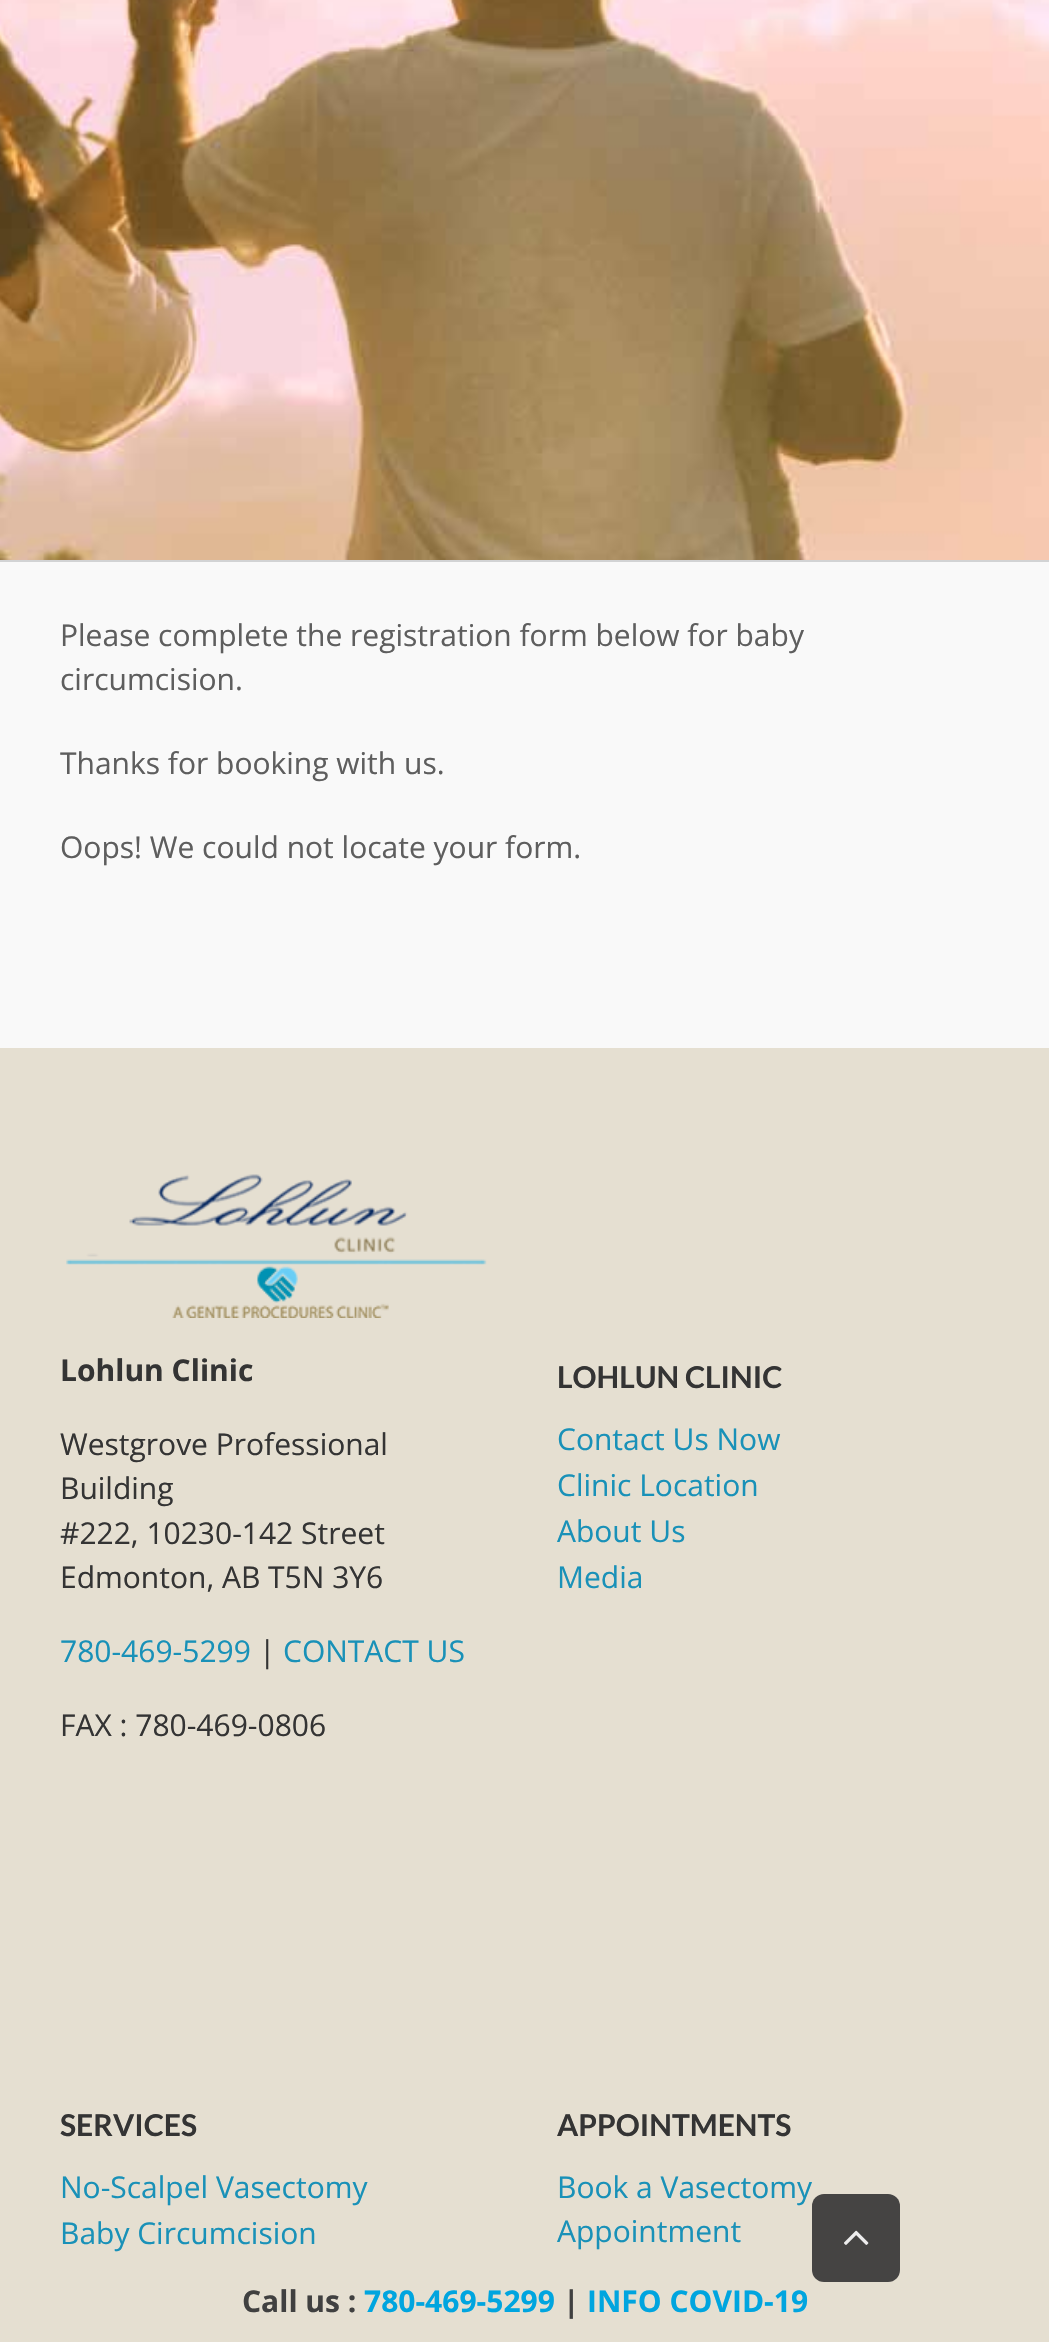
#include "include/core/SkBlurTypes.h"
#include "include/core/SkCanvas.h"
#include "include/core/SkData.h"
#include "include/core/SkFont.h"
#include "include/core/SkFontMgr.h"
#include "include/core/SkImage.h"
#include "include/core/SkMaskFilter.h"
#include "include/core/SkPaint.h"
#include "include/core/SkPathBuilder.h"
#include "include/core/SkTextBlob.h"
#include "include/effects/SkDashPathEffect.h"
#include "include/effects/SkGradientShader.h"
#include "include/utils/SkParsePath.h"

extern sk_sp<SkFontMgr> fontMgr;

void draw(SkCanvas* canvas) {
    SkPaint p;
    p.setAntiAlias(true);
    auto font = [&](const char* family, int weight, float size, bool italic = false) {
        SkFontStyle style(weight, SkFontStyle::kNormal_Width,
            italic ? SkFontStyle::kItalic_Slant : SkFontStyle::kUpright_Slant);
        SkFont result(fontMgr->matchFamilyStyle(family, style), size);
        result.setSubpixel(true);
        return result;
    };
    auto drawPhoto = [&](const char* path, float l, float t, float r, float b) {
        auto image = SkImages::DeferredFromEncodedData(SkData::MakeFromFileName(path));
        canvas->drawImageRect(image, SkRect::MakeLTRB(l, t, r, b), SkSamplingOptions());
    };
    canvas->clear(0xFFF9F9F9);
    drawPhoto("media/1.png", 0, 0, 1049, 560);
    p.setColor(0xFFD2D3D4);
    canvas->drawRect(SkRect::MakeLTRB(0, 560, 1049, 562), p);
    auto font1 = font("Open Sans", 400, 30);
    p.setColor(0xFF5E5E5E);
    {
        const struct { const char* s; float x, y; } items[] = {
            {"Please complete the registration form below for baby", 60, 646},
            {"circumcision.", 60, 690},
            {"Thanks for booking with us.", 60, 774},
            {"Oops! We could not locate your form.", 60, 858},
        };
        for (auto [s, x, y] : items) {
            canvas->drawString(s, x, y, font1, p);
        }
    }
    p.setColor(0xFFE5DFD1);
    canvas->drawRect(SkRect::MakeLTRB(0, 1048, 1049, 2342), p);
    drawPhoto("media/2.png", 66, 1174, 487, 1318);
    auto font2 = font("Open Sans", 700, 30);
    p.setColor(0xFF343434);
    canvas->drawString("Lohlun Clinic", 60, 1381, font2, p);
    {
        const struct { const char* s; float x, y; } items[] = {
            {"Westgrove Professional", 60, 1455},
            {"Building", 60, 1499},
            {"#222, 10230-142 Street", 60, 1544},
            {"Edmonton, AB T5N 3Y6", 60, 1588},
        };
        for (auto [s, x, y] : items) {
            canvas->drawString(s, x, y, font1, p);
        }
    }
    p.setColor(0xFF1991B8);
    canvas->drawString("780-469-5299", 60, 1662, font1, p);
    p.setColor(0xFF343434);
    canvas->drawString("|", 259, 1662, font1, p);
    p.setColor(0xFF1991B8);
    canvas->drawString("CONTACT US", 283, 1662, font1, p);
    p.setColor(0xFF343434);
    canvas->drawString("FAX : 780-469-0806", 60, 1736, font1, p);
    auto font3 = font("Lato", 700, 30);
    canvas->drawString("LOHLUN CLINIC", 557, 1388, font3, p);
    p.setColor(0xFF1991B8);
    {
        const struct { const char* s; float x, y; } items[] = {
            {"Contact Us Now", 557, 1450},
            {"Clinic Location", 557, 1496},
            {"About Us", 557, 1542},
            {"Media", 557, 1588},
        };
        for (auto [s, x, y] : items) {
            canvas->drawString(s, x, y, font1, p);
        }
    }
    p.setColor(0xFF343434);
    canvas->drawString("SERVICES", 60, 2136, font3, p);
    p.setColor(0xFF1991B8);
    canvas->drawString("No-Scalpel Vasectomy", 60, 2198, font1, p);
    canvas->drawString("Baby Circumcision", 60, 2244, font1, p);
    p.setColor(0xFF343434);
    canvas->drawString("APPOINTMENTS", 557, 2136, font3, p);
    p.setColor(0xFF1991B8);
    canvas->drawString("Book a Vasectomy", 557, 2198, font1, p);
    canvas->drawString("Appointment", 557, 2242, font1, p);
    p.setColor(0xFF454443);
    canvas->drawRoundRect(SkRect::MakeLTRB(812, 2194, 900, 2282), 12, 12, p);
    drawPhoto("media/3.png", 844, 2230, 869, 2245);
    p.setColor(0xFF404040);
    canvas->drawString("Call us :", 242, 2312, font2, p);
    p.setColor(0xFF00A5DF);
    canvas->drawString("780-469-5299", 364, 2312, font2, p);
    p.setColor(0xFF404040);
    canvas->drawString("|", 563, 2312, font2, p);
    p.setColor(0xFF00A5DF);
    canvas->drawString("INFO COVID-19", 587, 2312, font2, p);
}
